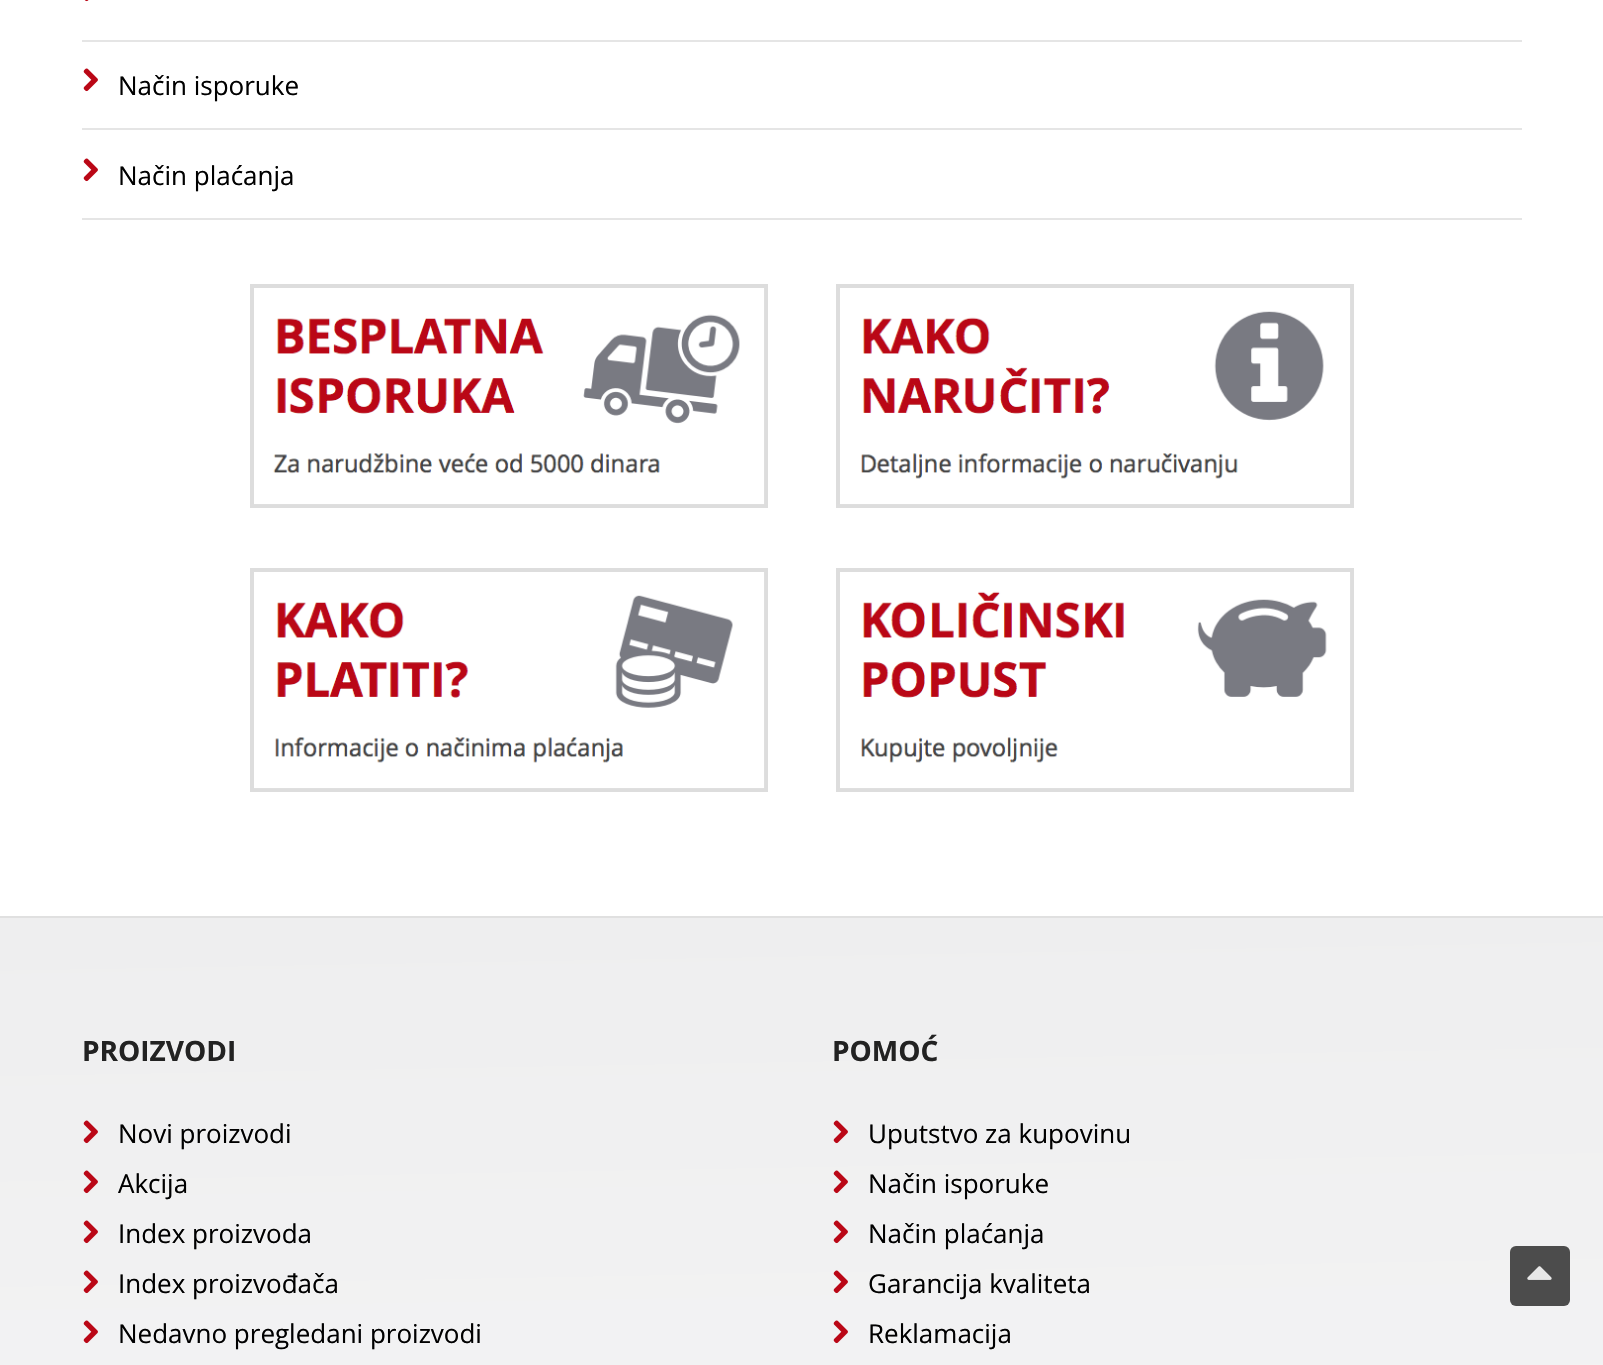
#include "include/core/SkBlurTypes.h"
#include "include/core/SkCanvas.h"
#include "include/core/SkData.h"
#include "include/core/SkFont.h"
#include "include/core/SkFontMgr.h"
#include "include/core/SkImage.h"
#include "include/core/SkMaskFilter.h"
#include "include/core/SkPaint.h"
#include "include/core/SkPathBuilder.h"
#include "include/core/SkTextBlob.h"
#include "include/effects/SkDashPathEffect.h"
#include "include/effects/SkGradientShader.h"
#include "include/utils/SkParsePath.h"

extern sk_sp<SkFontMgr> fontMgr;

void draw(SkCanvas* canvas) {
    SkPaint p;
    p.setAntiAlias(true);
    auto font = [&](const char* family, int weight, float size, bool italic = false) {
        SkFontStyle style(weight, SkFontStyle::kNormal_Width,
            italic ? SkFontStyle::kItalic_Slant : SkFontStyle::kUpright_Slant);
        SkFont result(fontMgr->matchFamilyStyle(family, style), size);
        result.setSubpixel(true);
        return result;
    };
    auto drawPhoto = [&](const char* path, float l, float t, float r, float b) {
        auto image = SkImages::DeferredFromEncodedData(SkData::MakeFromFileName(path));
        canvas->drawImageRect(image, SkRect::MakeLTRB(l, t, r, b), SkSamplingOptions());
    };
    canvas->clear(0xFFFFFFFF);
    drawPhoto("media/1.png", 84, 0, 89, 2);
    p.setColor(0xFFE5E5E5);
    canvas->drawRect(SkRect::MakeLTRB(82, 40, 1522, 42), p);
    drawPhoto("media/2.png", 83, 68, 98, 92);
    canvas->drawRect(SkRect::MakeLTRB(82, 128, 1522, 130), p);
    auto font1 = font("Open Sans", 400, 26);
    p.setColor(0xFF000000);
    canvas->drawString("Način isporuke", 118, 95, font1, p);
    drawPhoto("media/2.png", 83, 158, 98, 182);
    p.setColor(0xFFE5E5E5);
    canvas->drawRect(SkRect::MakeLTRB(82, 218, 1522, 220), p);
    p.setColor(0xFF000000);
    canvas->drawString("Način plaćanja", 118, 185, font1, p);
    drawPhoto("media/3.png", 250, 284, 768, 508);
    drawPhoto("media/4.png", 836, 284, 1354, 508);
    drawPhoto("media/5.png", 250, 568, 768, 792);
    drawPhoto("media/6.png", 836, 568, 1354, 792);
    {
        const SkColor colors[] = {0xFFFFFFFF, 0xFFEEEEEF};
        const float stops[] = {0, 1};
        const SkPoint ends[] = {{818, 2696}, {786, 904}};
        p.setShader(SkGradientShader::MakeLinear(ends, colors, stops, 2, SkTileMode::kClamp));
        p.setAlpha(255);
    }
    canvas->drawRect(SkRect::MakeLTRB(0, 918, 1603, 1365), p);
    p.setShader(nullptr);
    p.setColor(0xFFE0E0E0);
    canvas->drawRect(SkRect::MakeLTRB(0, 916, 1603, 918), p);
    auto font2 = font("Open Sans", 700, 28);
    p.setColor(0xFF222222);
    canvas->drawString("PROIZVODI", 82, 1061, font2, p);
    drawPhoto("media/7.png", 83, 1120, 98, 1144);
    p.setColor(0xFF000000);
    canvas->drawString("Novi proizvodi", 118, 1143, font1, p);
    drawPhoto("media/8.png", 83, 1170, 98, 1194);
    canvas->drawString("Akcija", 118, 1193, font1, p);
    drawPhoto("media/9.png", 83, 1220, 98, 1244);
    canvas->drawString("Index proizvoda", 118, 1243, font1, p);
    drawPhoto("media/10.png", 83, 1270, 98, 1294);
    canvas->drawString("Index proizvođača", 118, 1293, font1, p);
    drawPhoto("media/11.png", 83, 1320, 98, 1344);
    canvas->drawString("Nedavno pregledani proizvodi", 118, 1343, font1, p);
    p.setColor(0xFF222222);
    canvas->drawString("POMOĆ", 832, 1061, font2, p);
    drawPhoto("media/7.png", 833, 1120, 848, 1144);
    p.setColor(0xFF000000);
    canvas->drawString("Uputstvo za kupovinu", 868, 1143, font1, p);
    drawPhoto("media/12.png", 833, 1170, 848, 1194);
    canvas->drawString("Način isporuke", 868, 1193, font1, p);
    drawPhoto("media/9.png", 833, 1220, 848, 1244);
    canvas->drawString("Način plaćanja", 868, 1243, font1, p);
    drawPhoto("media/13.png", 833, 1270, 848, 1294);
    canvas->drawString("Garancija kvaliteta", 868, 1293, font1, p);
    drawPhoto("media/11.png", 833, 1320, 848, 1344);
    canvas->drawString("Reklamacija", 868, 1343, font1, p);
    p.setColor(0xFF4C4C4C);
    canvas->drawRoundRect(SkRect::MakeLTRB(1510, 1246, 1570, 1306), 6, 6, p);
    drawPhoto("media/14.png", 1527, 1266, 1552, 1280);
}
